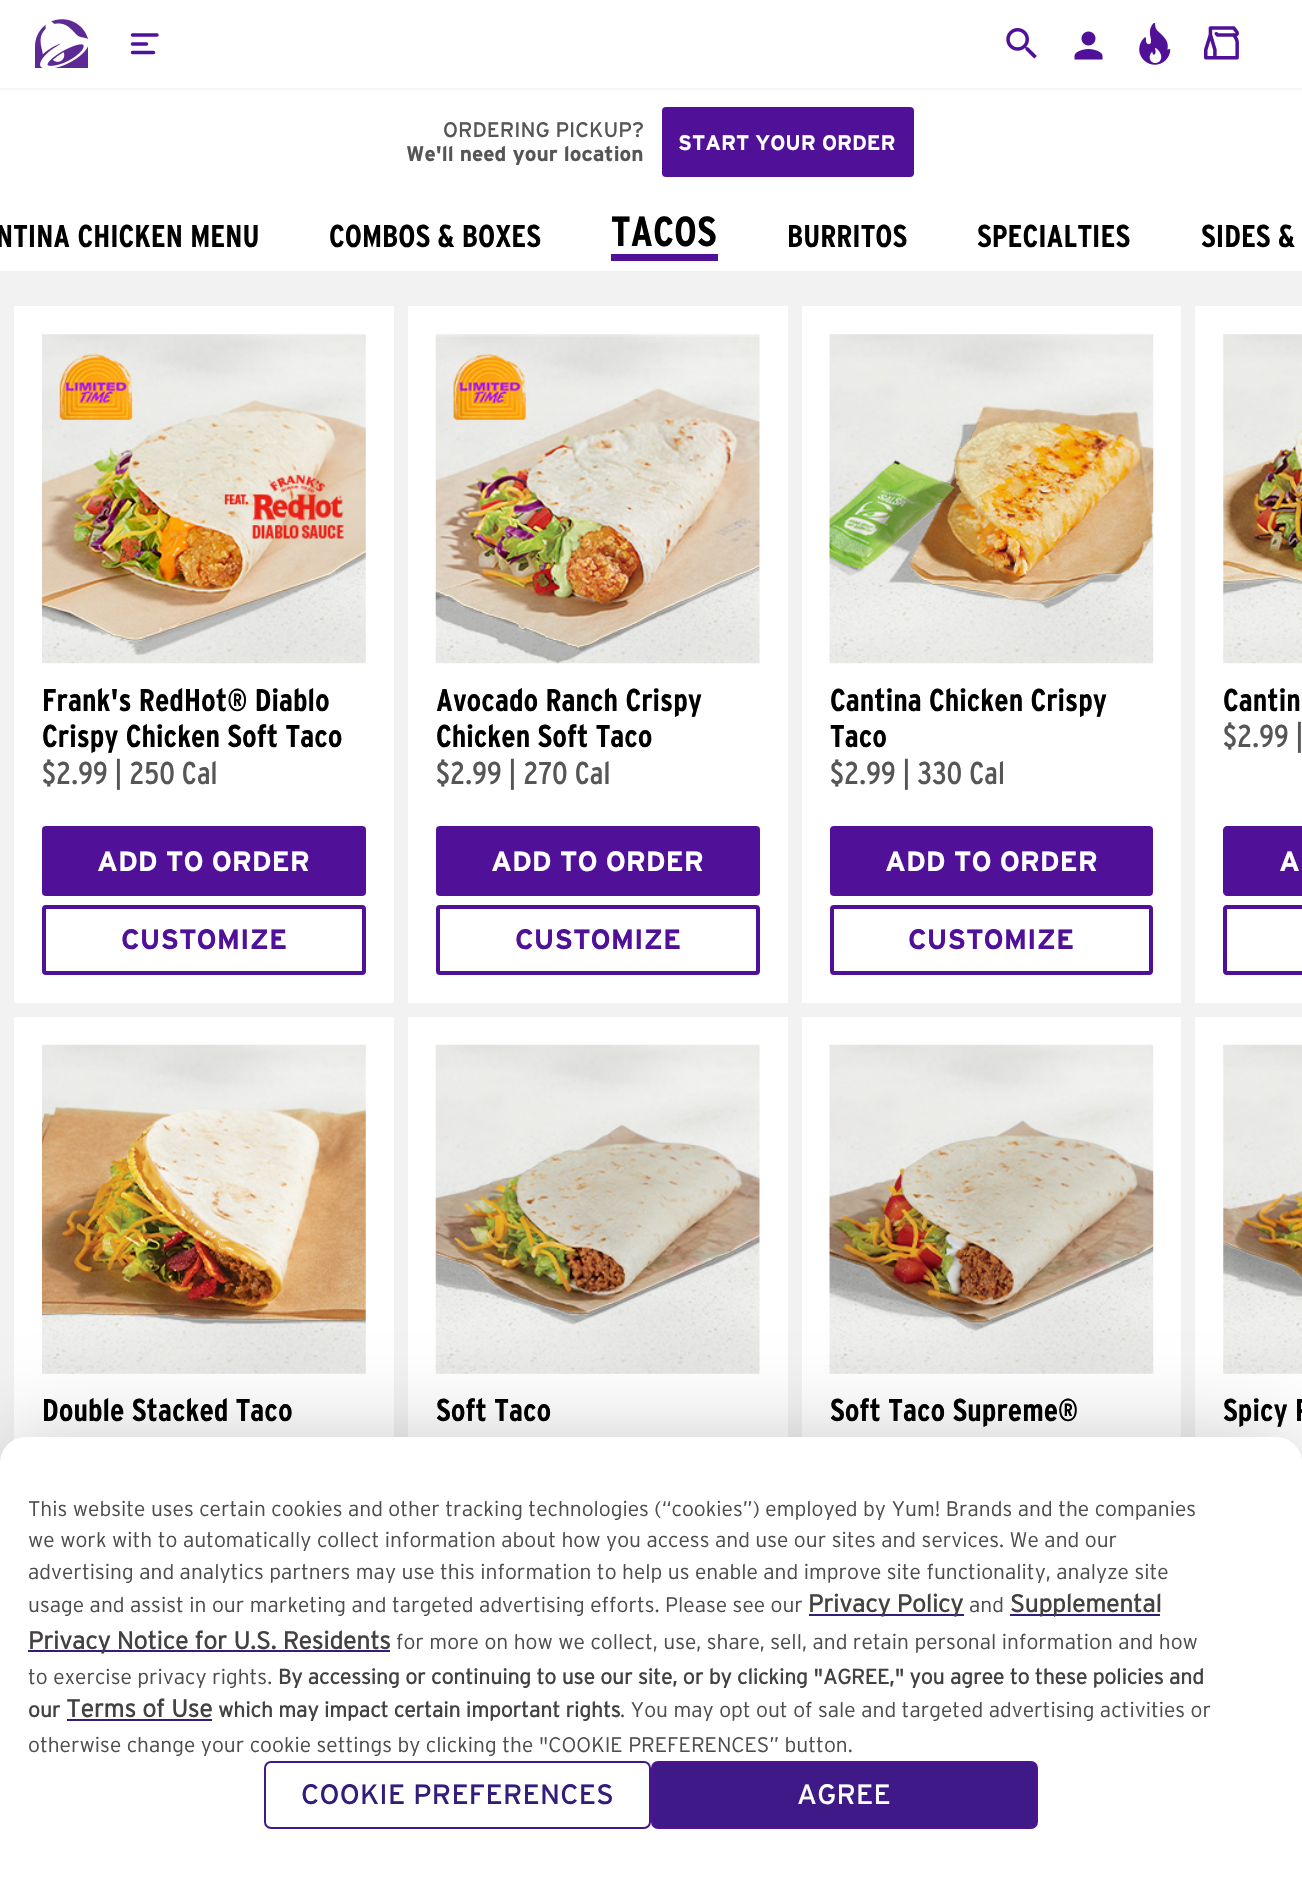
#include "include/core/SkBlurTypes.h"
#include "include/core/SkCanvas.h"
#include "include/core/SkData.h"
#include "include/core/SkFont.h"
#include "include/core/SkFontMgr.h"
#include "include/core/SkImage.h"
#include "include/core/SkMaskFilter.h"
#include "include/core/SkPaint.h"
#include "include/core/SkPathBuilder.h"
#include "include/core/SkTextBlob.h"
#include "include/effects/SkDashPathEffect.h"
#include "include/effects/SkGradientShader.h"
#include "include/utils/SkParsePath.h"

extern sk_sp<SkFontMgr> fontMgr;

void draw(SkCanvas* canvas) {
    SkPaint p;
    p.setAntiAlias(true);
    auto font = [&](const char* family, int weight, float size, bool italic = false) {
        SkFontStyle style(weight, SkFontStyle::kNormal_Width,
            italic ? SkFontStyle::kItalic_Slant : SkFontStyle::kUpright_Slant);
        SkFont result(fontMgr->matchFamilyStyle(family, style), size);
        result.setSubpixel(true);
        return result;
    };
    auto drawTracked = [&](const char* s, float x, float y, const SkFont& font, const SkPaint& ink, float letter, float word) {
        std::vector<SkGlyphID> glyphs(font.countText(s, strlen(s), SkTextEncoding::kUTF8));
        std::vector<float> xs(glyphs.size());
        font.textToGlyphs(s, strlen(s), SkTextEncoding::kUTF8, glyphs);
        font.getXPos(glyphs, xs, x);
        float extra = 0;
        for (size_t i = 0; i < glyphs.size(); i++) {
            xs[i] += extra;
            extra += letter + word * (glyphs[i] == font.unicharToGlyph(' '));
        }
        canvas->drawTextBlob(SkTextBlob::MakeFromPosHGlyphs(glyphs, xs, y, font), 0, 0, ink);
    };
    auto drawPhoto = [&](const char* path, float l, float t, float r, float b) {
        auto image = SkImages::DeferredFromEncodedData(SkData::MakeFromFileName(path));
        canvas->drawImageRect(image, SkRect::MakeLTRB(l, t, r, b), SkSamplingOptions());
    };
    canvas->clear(0xFFFFFFFF);
    p.setColor(0xFFF4F4F4);
    canvas->drawRect(SkRect::MakeLTRB(0, 88, 1302, 90), p);
    drawPhoto("media/1.png", 35, 19, 88, 68);
    p.setStyle(SkPaint::kStroke_Style);
    p.setStrokeWidth(3.5f);
    p.setStrokeCap(SkPaint::kRound_Cap);
    p.setColor(0xFF501098);
    canvas->drawPath(SkPathBuilder().moveTo(132.5f, 35).lineTo(157, 35).moveTo(132.5f, 44).lineTo(146.5f, 44).moveTo(132.5f, 52.5f).lineTo(153.5f, 52.5f).detach(), p);
    drawPhoto("media/2.png", 1006, 28, 1037, 59);
    drawPhoto("media/3.png", 1074, 31, 1103, 60);
    drawPhoto("media/4.png", 1139, 23, 1171, 65);
    drawPhoto("media/5.png", 1204, 26, 1239, 60);
    auto font1 = font("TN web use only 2", 400, 21);
    p.setStyle(SkPaint::kFill_Style);
    p.setColor(0xFF565656);
    canvas->drawString("ORDERING PICKUP?", 443, 137, font1, p);
    auto font2 = font("TN web use only 2", 700, 21);
    canvas->drawString("We'll need your location", 406, 161, font2, p);
    p.setColor(0xFF501098);
    canvas->drawRoundRect(SkRect::MakeLTRB(662, 107, 914, 177), 4, 4, p);
    p.setColor(0xFFFFFFFF);
    canvas->drawString("START YOUR ORDER", 678, 150, font2, p);
    auto font3 = font("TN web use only", 700, 31.5f);
    p.setColor(0xFF000000);
    canvas->drawString("NTINA CHICKEN MENU", -4, 247, font3, p);
    canvas->drawString("COMBOS & BOXES", 329, 247, font3, p);
    p.setColor(0xFF501098);
    canvas->drawRect(SkRect::MakeLTRB(611, 254, 718, 261), p);
    auto font4 = font("TN web use only", 700, 42);
    p.setColor(0xFF000000);
    canvas->drawString("TACOS", 611, 246, font4, p);
    {
        const struct { const char* s; float x, y; } items[] = {
            {"BURRITOS", 787, 247},
            {"SPECIALTIES", 977, 247},
            {"SIDES &", 1201, 247},
        };
        for (auto [s, x, y] : items) {
            canvas->drawString(s, x, y, font3, p);
        }
    }
    p.setColor(0xFFF2F2F2);
    canvas->drawRect(SkRect::MakeLTRB(0, 271, 1302, 1463), p);
    p.setColor(0xFFFFFFFF);
    canvas->drawRect(SkRect::MakeLTRB(14, 306, 394, 1003), p);
    drawPhoto("media/6.png", 42, 334, 366, 664);
    p.setColor(0xFF000000);
    canvas->drawString("Frank's RedHot® Diablo", 42, 711, font3, p);
    canvas->drawString("Crispy Chicken Soft Taco", 42, 747, font3, p);
    auto font5 = font("TN web use only", 400, 31.5f);
    p.setColor(0xFF565656);
    canvas->drawString("$2.99 | 250 Cal", 42, 784, font5, p);
    p.setColor(0xFF501098);
    canvas->drawRoundRect(SkRect::MakeLTRB(42, 826, 366, 896), 4, 4, p);
    auto font6 = font("TN web use only 2", 700, 28);
    p.setColor(0xFFFFFFFF);
    canvas->drawString("ADD TO ORDER", 97, 871, font6, p);
    p.setStyle(SkPaint::kStroke_Style);
    p.setStrokeWidth(4);
    p.setStrokeCap(SkPaint::kButt_Cap);
    p.setColor(0xFF501098);
    canvas->drawRoundRect(SkRect::MakeLTRB(44, 907, 364, 973), 2, 2, p);
    p.setStyle(SkPaint::kFill_Style);
    canvas->drawString("CUSTOMIZE", 121, 949, font6, p);
    p.setColor(0xFFFFFFFF);
    canvas->drawRect(SkRect::MakeLTRB(408, 306, 788, 1003), p);
    drawPhoto("media/7.png", 435, 334, 760, 664);
    p.setColor(0xFF000000);
    canvas->drawString("Avocado Ranch Crispy", 436, 711, font3, p);
    canvas->drawString("Chicken Soft Taco", 436, 747, font3, p);
    p.setColor(0xFF565656);
    canvas->drawString("$2.99 | 270 Cal", 436, 784, font5, p);
    p.setColor(0xFF501098);
    canvas->drawRoundRect(SkRect::MakeLTRB(436, 826, 760, 896), 4, 4, p);
    p.setColor(0xFFFFFFFF);
    canvas->drawString("ADD TO ORDER", 491, 871, font6, p);
    p.setStyle(SkPaint::kStroke_Style);
    p.setColor(0xFF501098);
    canvas->drawRoundRect(SkRect::MakeLTRB(438, 907, 758, 973), 2, 2, p);
    p.setStyle(SkPaint::kFill_Style);
    canvas->drawString("CUSTOMIZE", 515, 949, font6, p);
    p.setColor(0xFFFFFFFF);
    canvas->drawRect(SkRect::MakeLTRB(802, 306, 1181, 1003), p);
    drawPhoto("media/8.png", 829, 334, 1154, 664);
    p.setColor(0xFF000000);
    canvas->drawString("Cantina Chicken Crispy", 830, 711, font3, p);
    canvas->drawString("Taco", 830, 747, font3, p);
    p.setColor(0xFF565656);
    canvas->drawString("$2.99 | 330 Cal", 830, 784, font5, p);
    p.setColor(0xFF501098);
    canvas->drawRoundRect(SkRect::MakeLTRB(830, 826, 1153, 896), 4, 4, p);
    p.setColor(0xFFFFFFFF);
    canvas->drawString("ADD TO ORDER", 885, 871, font6, p);
    p.setStyle(SkPaint::kStroke_Style);
    p.setColor(0xFF501098);
    canvas->drawRoundRect(SkRect::MakeLTRB(832, 907, 1151, 973), 2, 2, p);
    p.setStyle(SkPaint::kFill_Style);
    canvas->drawString("CUSTOMIZE", 908, 949, font6, p);
    p.setColor(0xFFFFFFFF);
    canvas->drawRect(SkRect::MakeLTRB(1195, 306, 1302, 1003), p);
    drawPhoto("media/9.png", 1223, 334, 1302, 664);
    p.setColor(0xFF000000);
    canvas->drawString("Cantin", 1223, 711, font3, p);
    p.setColor(0xFF565656);
    canvas->drawString("$2.99 |", 1223, 747, font5, p);
    p.setColor(0xFF501098);
    canvas->drawPath(SkPathBuilder().moveTo(1227, 826).lineTo(1302, 826).lineTo(1302, 896).lineTo(1227, 896).cubicTo(1225, 896, 1223, 894, 1223, 892).lineTo(1223, 830).cubicTo(1223, 828, 1225, 826, 1227, 826).close().detach(), p);
    p.setColor(0xFFFFFFFF);
    canvas->drawString("A", 1279, 871, font6, p);
    p.setStyle(SkPaint::kStroke_Style);
    p.setColor(0xFF501098);
    canvas->drawRoundRect(SkRect::MakeLTRB(1225, 907, 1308, 973), 2, 2, p);
    p.setStyle(SkPaint::kFill_Style);
    p.setColor(0xFFFFFFFF);
    canvas->drawRect(SkRect::MakeLTRB(14, 1017, 394, 1440), p);
    drawPhoto("media/10.png", 42, 1044, 366, 1374);
    p.setColor(0xFF000000);
    canvas->drawString("Double Stacked Taco", 42, 1421, font3, p);
    p.setColor(0xFFFFFFFF);
    canvas->drawRect(SkRect::MakeLTRB(408, 1017, 788, 1437), p);
    drawPhoto("media/11.png", 435, 1044, 760, 1374);
    p.setColor(0xFF000000);
    canvas->drawString("Soft Taco", 436, 1421, font3, p);
    p.setColor(0xFFFFFFFF);
    canvas->drawRect(SkRect::MakeLTRB(802, 1017, 1181, 1437), p);
    drawPhoto("media/12.png", 829, 1044, 1154, 1374);
    p.setColor(0xFF000000);
    canvas->drawString("Soft Taco Supreme®", 830, 1421, font3, p);
    p.setColor(0xFFFFFFFF);
    canvas->drawRect(SkRect::MakeLTRB(1195, 1017, 1302, 1463), p);
    drawPhoto("media/13.png", 1223, 1044, 1302, 1374);
    p.setColor(0xFF000000);
    canvas->drawString("Spicy P", 1223, 1421, font3, p);
    p.setColor(0x33000000);
    p.setMaskFilter(SkMaskFilter::MakeBlur(kNormal_SkBlurStyle, 44));
    canvas->drawRoundRect(SkRect::MakeLTRB(0, 1437, 1302, 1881), 26, 26, p);
    p.setMaskFilter(nullptr);
    p.setColor(0xFFFFFFFF);
    canvas->drawPath(SkPathBuilder().moveTo(26, 1437).lineTo(1276, 1437).cubicTo(1290.5f, 1437, 1302, 1448.5f, 1302, 1463).lineTo(1302, 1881).lineTo(0, 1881).lineTo(0, 1463).cubicTo(0, 1448.5f, 11.5f, 1437, 26, 1437).close().detach(), p);
    auto font7 = font("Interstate", 300, 21);
    p.setColor(0xFF4E4E4E);
    {
        const struct { const char* s; float x, y; } items[] = {
            {"This website uses certain cookies and other tracking technologies (“cookies”) employed by Yum! Brands and the companies", 28, 1516},
            {"we work with to automatically collect information about how you access and use our sites and services. We and our", 28, 1547},
            {"advertising and analytics partners may use this information to help us enable and improve site functionality, analyze site", 28, 1579},
            {"usage and assist in our marketing and targeted advertising efforts. Please see our", 28, 1612},
        };
        for (auto [s, x, y] : items) {
            canvas->drawString(s, x, y, font7, p);
        }
    }
    p.setColor(0xFF341C7A);
    canvas->drawRect(SkRect::MakeLTRB(809, 1614, 964, 1616), p);
    auto font8 = font("Interstate", 700, 24.5f);
    p.setColor(0xFF444141);
    canvas->drawString("Privacy Policy", 808, 1612, font8, p);
    p.setColor(0xFF4E4E4E);
    canvas->drawString("and", 969, 1612, font7, p);
    p.setColor(0xFF341C7A);
    canvas->drawRect(SkRect::MakeLTRB(1010, 1614, 1160, 1616), p);
    p.setColor(0xFF444141);
    canvas->drawString("Supplemental", 1010, 1612, font8, p);
    p.setColor(0xFF341C7A);
    canvas->drawRect(SkRect::MakeLTRB(28, 1650, 390, 1652), p);
    p.setColor(0xFF444141);
    canvas->drawString("Privacy Notice for U.S. Residents", 28, 1649, font8, p);
    p.setColor(0xFF4E4E4E);
    canvas->drawString("for more on how we collect, use, share, sell, and retain personal information and how", 396, 1649, font7, p);
    canvas->drawString("to exercise privacy rights.", 28, 1684, font7, p);
    auto font9 = font("Interstate", 700, 21);
    p.setColor(0xFF444141);
    canvas->drawString("By accessing or continuing to use our site, or by clicking \"AGREE,\" you agree to these policies and", 278, 1684, font9, p);
    canvas->drawString("our", 28, 1717, font9, p);
    canvas->drawString("Terms of Use", 66, 1717, font8, p);
    p.setColor(0xFF341C7A);
    canvas->drawRect(SkRect::MakeLTRB(67, 1719, 212, 1721), p);
    p.setColor(0xFF444141);
    canvas->drawString("which may impact certain important rights", 218, 1717, font9, p);
    p.setColor(0xFF4E4E4E);
    canvas->drawString(". You may opt out of sale and targeted advertising activities or", 620, 1717, font7, p);
    canvas->drawString("otherwise change your cookie settings by clicking the \"COOKIE PREFERENCES” button.", 28, 1752, font7, p);
    p.setStyle(SkPaint::kStroke_Style);
    p.setStrokeWidth(2);
    p.setColor(0xFF401989);
    canvas->drawRoundRect(SkRect::MakeLTRB(265, 1762, 650, 1828), 6, 6, p);
    auto font10 = font("TN web use only 2", 400, 28);
    p.setStyle(SkPaint::kFill_Style);
    p.setColor(0xFF341C7A);
    drawTracked("COOKIE PREFERENCES", 301, 1804, font10, p, 0.25f, 0);
    p.setColor(0xFF401989);
    canvas->drawRoundRect(SkRect::MakeLTRB(652, 1762, 1037, 1828), 6, 6, p);
    p.setStyle(SkPaint::kStroke_Style);
    p.setColor(0xFF501098);
    canvas->drawRoundRect(SkRect::MakeLTRB(652, 1762, 1037, 1828), 6, 6, p);
    p.setStyle(SkPaint::kFill_Style);
    p.setColor(0xFFFFFFFF);
    drawTracked("AGREE", 797, 1804, font10, p, 0.25f, 0);
}
